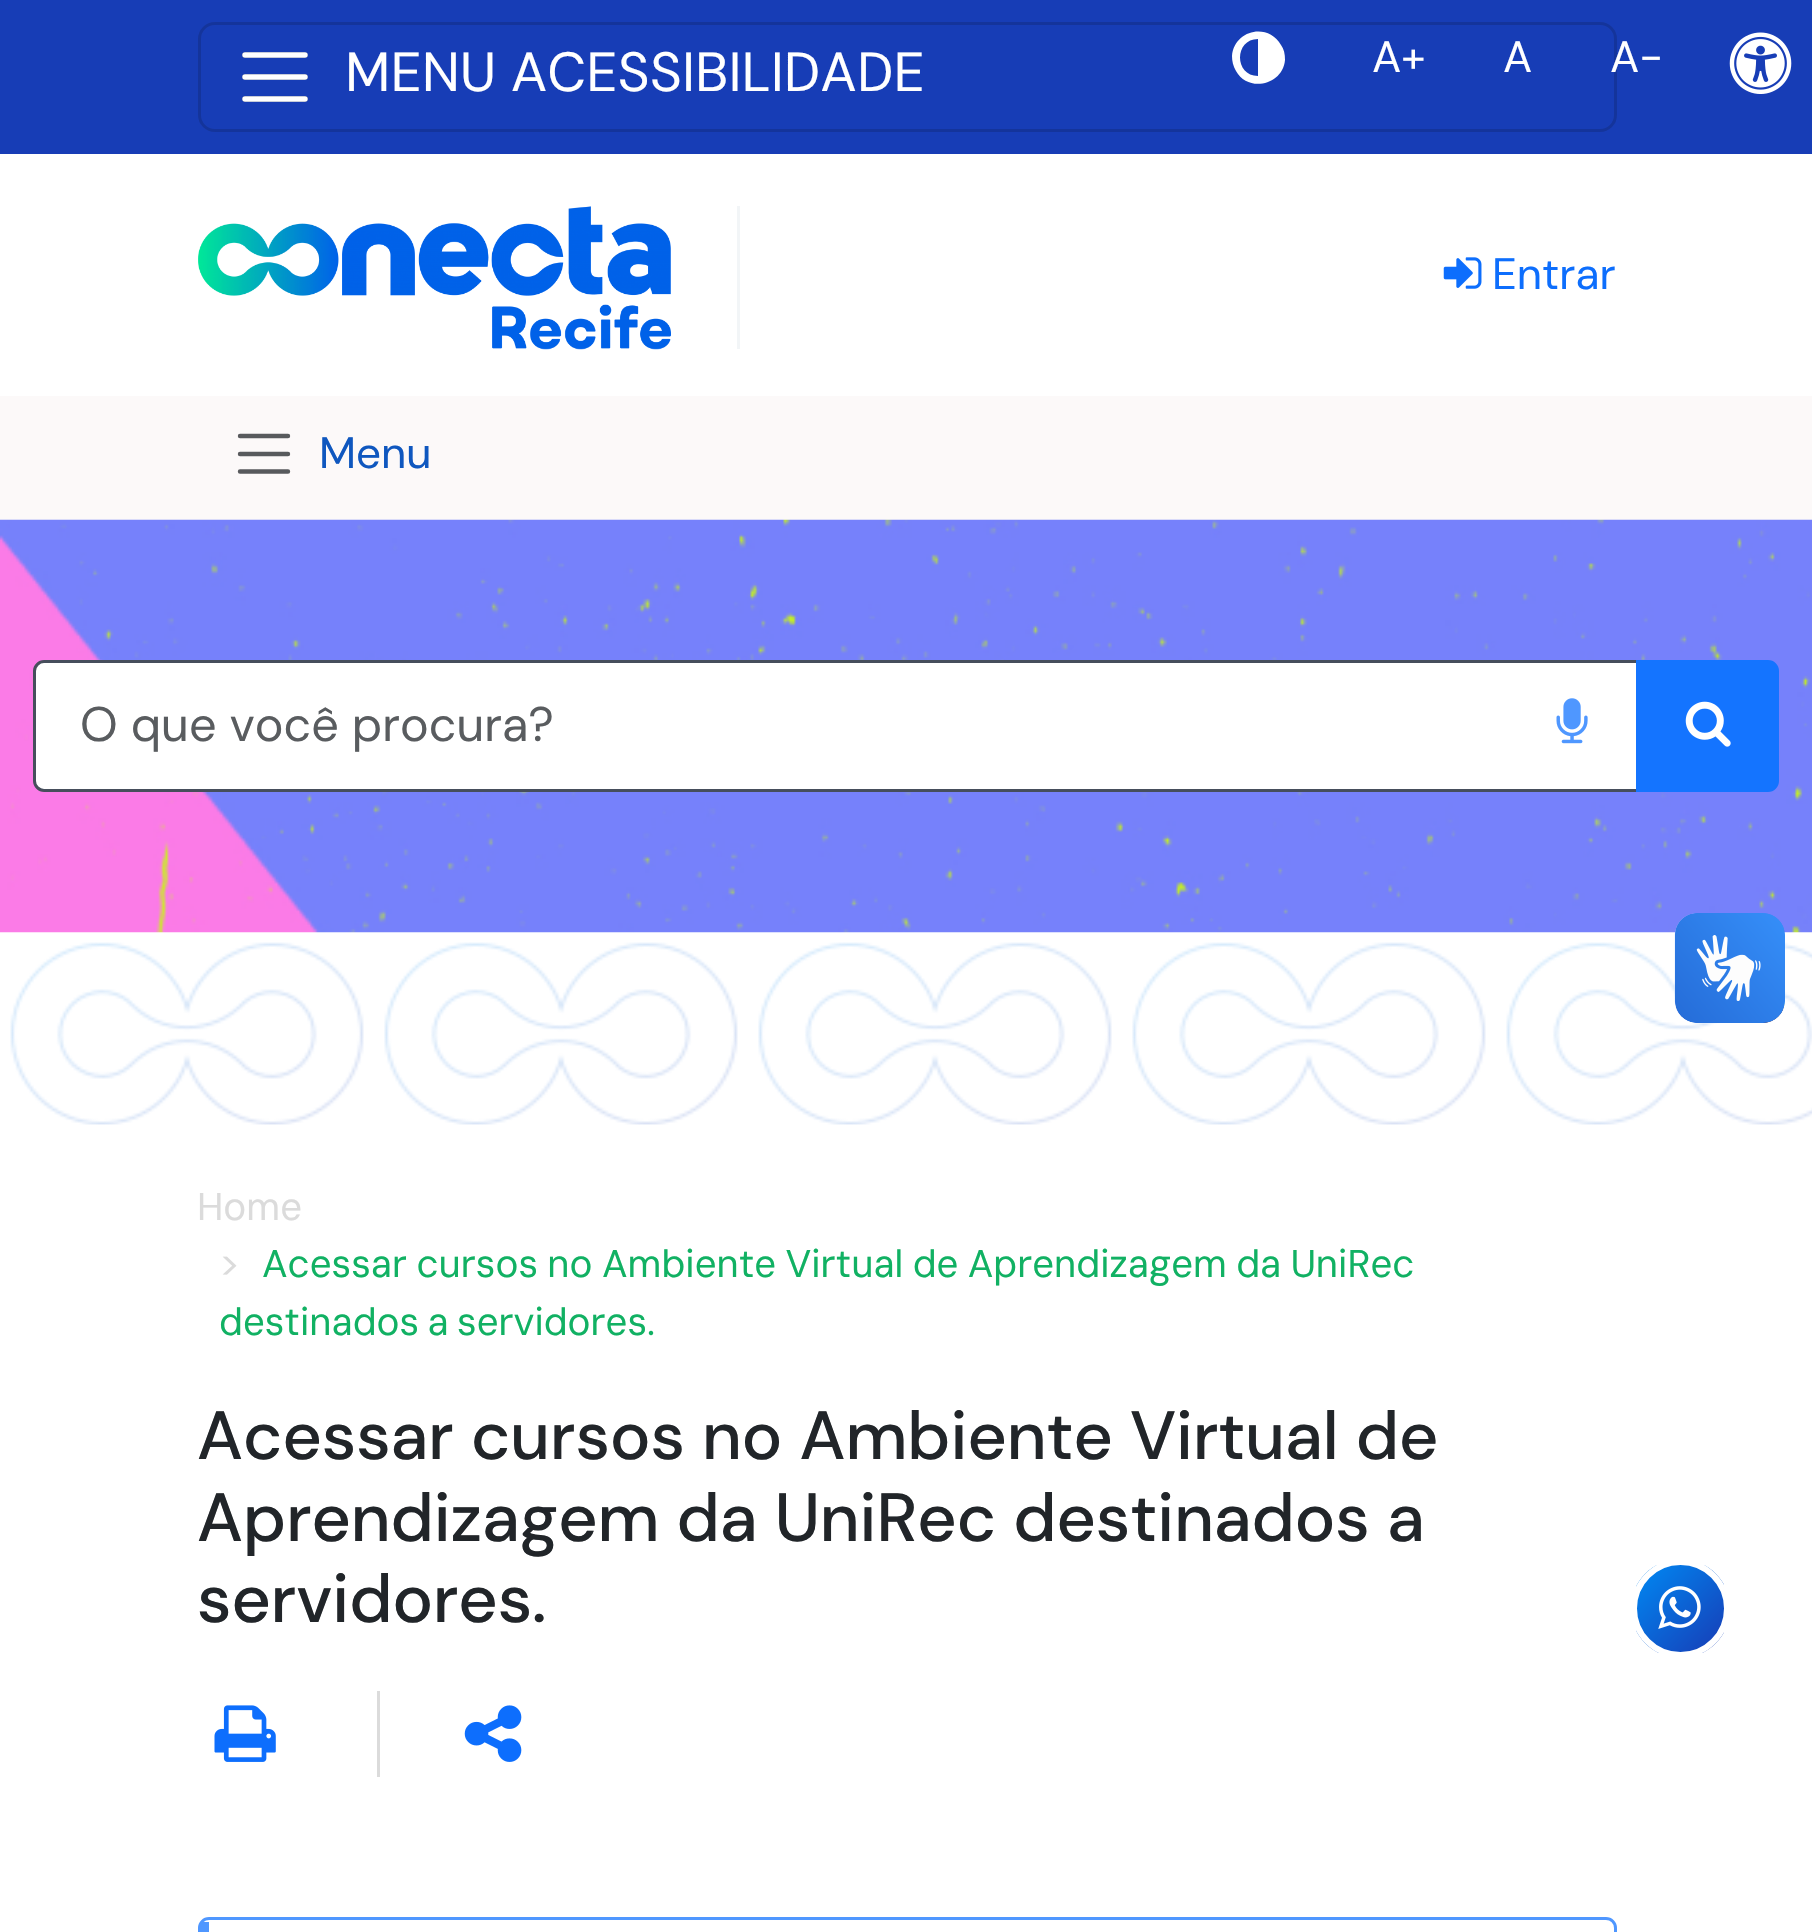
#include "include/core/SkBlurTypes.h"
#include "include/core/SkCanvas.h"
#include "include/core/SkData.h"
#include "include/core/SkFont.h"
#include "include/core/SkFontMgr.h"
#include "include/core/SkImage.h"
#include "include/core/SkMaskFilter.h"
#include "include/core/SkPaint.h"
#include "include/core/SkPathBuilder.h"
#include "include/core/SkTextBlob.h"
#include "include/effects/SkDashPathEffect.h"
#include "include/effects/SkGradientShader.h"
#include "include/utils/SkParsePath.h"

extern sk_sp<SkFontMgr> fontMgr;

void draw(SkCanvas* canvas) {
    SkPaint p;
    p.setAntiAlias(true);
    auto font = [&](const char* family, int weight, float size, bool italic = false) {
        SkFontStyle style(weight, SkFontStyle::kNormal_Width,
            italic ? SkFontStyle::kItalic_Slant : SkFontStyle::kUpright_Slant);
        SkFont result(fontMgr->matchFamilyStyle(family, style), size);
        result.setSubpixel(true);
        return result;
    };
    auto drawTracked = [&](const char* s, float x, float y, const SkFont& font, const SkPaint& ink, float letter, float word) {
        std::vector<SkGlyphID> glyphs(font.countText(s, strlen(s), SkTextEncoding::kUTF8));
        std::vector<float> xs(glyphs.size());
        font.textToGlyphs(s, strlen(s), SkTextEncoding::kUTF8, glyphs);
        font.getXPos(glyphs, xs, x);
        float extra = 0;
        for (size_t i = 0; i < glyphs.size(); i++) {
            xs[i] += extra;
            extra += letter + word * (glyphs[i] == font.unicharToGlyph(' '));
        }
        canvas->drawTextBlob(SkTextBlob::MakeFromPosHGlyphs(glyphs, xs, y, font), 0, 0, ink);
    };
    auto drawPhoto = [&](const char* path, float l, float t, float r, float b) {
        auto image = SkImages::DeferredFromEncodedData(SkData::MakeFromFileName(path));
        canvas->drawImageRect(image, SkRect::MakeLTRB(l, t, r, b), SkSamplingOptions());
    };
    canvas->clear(0xFFFFFFFF);
    p.setColor(0xFF173DB6);
    canvas->drawRect(SkRect::MakeLTRB(0, 0, 1812, 154), p);
    p.setStyle(SkPaint::kStroke_Style);
    p.setStrokeWidth(3);
    p.setColor(0xFF14349B);
    canvas->drawRoundRect(SkRect::MakeLTRB(199.5f, 23.5f, 1615.5f, 130.5f), 15.5f, 15.5f, p);
    p.setStrokeWidth(5.5f);
    p.setStrokeCap(SkPaint::kRound_Cap);
    p.setColor(0xFF1F2B4C);
    canvas->drawPath(SkPathBuilder().moveTo(245, 55).lineTo(305, 55).moveTo(245, 77).lineTo(305, 77).moveTo(245, 99).lineTo(305, 99).detach(), p);
    p.setColor(0xFFFFFFFF);
    canvas->drawPath(SkPathBuilder().moveTo(245, 55).lineTo(305, 55).moveTo(245, 77).lineTo(305, 77).moveTo(245, 99).lineTo(305, 99).detach(), p);
    auto font1 = font("DM Sans", 400, 55);
    p.setStyle(SkPaint::kFill_Style);
    canvas->drawString("MENU ACESSIBILIDADE", 345, 91, font1, p);
    canvas->drawPath(SkPathBuilder().moveTo(1258, 76).lineTo(1258, 39).cubicTo(1234, 39, 1234, 76, 1258, 76).close().moveTo(1281, 45).cubicTo(1284, 49, 1285, 54, 1285, 60).cubicTo(1283, 85, 1248, 93, 1236, 71).cubicTo(1233, 66, 1232, 61, 1232, 56).cubicTo(1234, 30, 1268, 22, 1281, 45).close().detach(), p);
    auto font2 = font("DM Sans", 400, 44);
    canvas->drawString("A+", 1372, 72, font2, p);
    auto font3 = font("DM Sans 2", 400, 44);
    canvas->drawString("A", 1503, 72, font3, p);
    canvas->drawString("A-", 1610, 72, font2, p);
    drawPhoto("media/1.png", 1729, 32, 1792, 94);
    p.setColor(0xFFF2F5F7);
    canvas->drawRect(SkRect::MakeLTRB(737, 206, 740, 349), p);
    drawPhoto("media/2.png", 198, 206, 671, 350);
    drawPhoto("media/3.png", 1443, 257, 1482, 289);
    p.setColor(0xFF0D6EFD);
    canvas->drawString("Entrar", 1492, 289, font3, p);
    p.setColor(0xFFFCF9F9);
    canvas->drawRect(SkRect::MakeLTRB(0, 396, 1812, 520), p);
    p.setStyle(SkPaint::kStroke_Style);
    p.setStrokeWidth(4.4f);
    p.setColor(0xFF585A5D);
    canvas->drawPath(SkPathBuilder().moveTo(240, 436).lineTo(288, 436).moveTo(240, 454).lineTo(288, 454).moveTo(240, 471.5f).lineTo(288, 471.5f).detach(), p);
    p.setStyle(SkPaint::kFill_Style);
    p.setColor(0xFF0F57BF);
    canvas->drawString("Menu", 319, 468, font3, p);
    drawPhoto("media/4.png", 0, 519, 1812, 933);
    p.setColor(0xFFFFFFFF);
    canvas->drawPath(SkPathBuilder().moveTo(44, 661.5f).lineTo(1508.5f, 661.5f).lineTo(1508.5f, 790.5f).lineTo(44, 790.5f).cubicTo(39, 790.5f, 34.5f, 786, 34.5f, 781).lineTo(34.5f, 671).cubicTo(34.5f, 666, 39, 661.5f, 44, 661.5f).close().detach(), p);
    p.setStyle(SkPaint::kStroke_Style);
    p.setStrokeWidth(3);
    p.setStrokeCap(SkPaint::kButt_Cap);
    p.setColor(0xFF464E5C);
    canvas->drawPath(SkPathBuilder().moveTo(44, 661.5f).lineTo(1508.5f, 661.5f).lineTo(1508.5f, 790.5f).lineTo(44, 790.5f).cubicTo(39, 790.5f, 34.5f, 786, 34.5f, 781).lineTo(34.5f, 671).cubicTo(34.5f, 666, 39, 661.5f, 44, 661.5f).close().detach(), p);
    auto font4 = font("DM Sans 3", 400, 48.5f);
    p.setStyle(SkPaint::kFill_Style);
    p.setColor(0xFF595C5F);
    canvas->drawString("O que você procura?", 80, 741, font4, p);
    {
        const struct { float l, t, r, b; SkColor color; } items[] = {
            {1507, 663, 1636, 789, 0xFFFFFFFF},
            {1507, 660, 1639, 663, 0xFF464E5C},
            {1507, 789, 1639, 792, 0xFF464E5C},
        };
        for (auto [l, t, r, b, color] : items) {
            p.setColor(color);
            canvas->drawRect(SkRect::MakeLTRB(l, t, r, b), p);
        }
    }
    drawPhoto("media/5.png", 1556, 698, 1588, 744);
    p.setColor(0xFF1474FF);
    canvas->drawPath(SkPathBuilder().moveTo(1639, 663).lineTo(1768, 663).cubicTo(1772.5f, 663, 1776, 666.5f, 1776, 671).lineTo(1776, 781).cubicTo(1776, 785.5f, 1772.5f, 789, 1768, 789).lineTo(1639, 789).close().detach(), p);
    p.setStyle(SkPaint::kStroke_Style);
    p.setStrokeWidth(6);
    canvas->drawPath(SkPathBuilder().moveTo(1639, 663).lineTo(1768, 663).cubicTo(1772.5f, 663, 1776, 666.5f, 1776, 671).lineTo(1776, 781).cubicTo(1776, 785.5f, 1772.5f, 789, 1768, 789).lineTo(1639, 789).close().detach(), p);
    drawPhoto("media/6.png", 1685, 701, 1731, 747);
    drawPhoto("media/7.png", 10, 942, 1812, 1125);
    drawPhoto("media/8.png", 1674, 913, 1785, 1023);
    drawPhoto("media/9.png", 1675, 913, 1785, 1023);
    auto font5 = font("DM Sans", 400, 38.5f);
    p.setStyle(SkPaint::kFill_Style);
    p.setColor(0xFFDBDBDB);
    canvas->drawString("Home", 197, 1220, font5, p);
    canvas->drawString(">", 219, 1277, font5, p);
    p.setColor(0xFF11B163);
    drawTracked("Acessar cursos no Ambiente Virtual de Aprendizagem da UniRec", 262, 1277, font5, p, 0, -1);
    drawTracked("destinados a servidores.", 219, 1335, font5, p, 0, -2);
    auto font6 = font("DM Sans", 500, 68.1f);
    p.setColor(0xFF212529);
    {
        const struct { const char* s; float x, y; } items[] = {
            {"Acessar cursos no Ambiente Virtual de", 197, 1459},
            {"Aprendizagem da UniRec destinados a", 197, 1541},
            {"servidores.", 197, 1622},
        };
        for (auto [s, x, y] : items) {
            canvas->drawString(s, x, y, font6, p);
        }
    }
    drawPhoto("media/10.png", 214, 1705, 276, 1762);
    p.setColor(0xFFDBDBDB);
    canvas->drawRect(SkRect::MakeLTRB(377, 1691, 380, 1777), p);
    drawPhoto("media/11.png", 464, 1705, 522, 1762);
    p.setStyle(SkPaint::kStroke_Style);
    p.setStrokeWidth(3);
    p.setColor(0xFF4F97FF);
    canvas->drawRoundRect(SkRect::MakeLTRB(199.5f, 1918.5f, 1615.5f, 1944.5f), 9.5f, 9.5f, p);
    p.setStyle(SkPaint::kFill_Style);
    canvas->drawRect(SkRect::MakeLTRB(201, 1922, 209, 1932), p);
    canvas->save();
    canvas->clipPath(SkPathBuilder().moveTo(1680.5f, 1559).cubicTo(1708, 1559, 1730, 1581, 1730, 1608.5f).cubicTo(1730, 1636, 1708, 1658, 1680.5f, 1658).cubicTo(1653, 1658, 1631, 1636, 1631, 1608.5f).cubicTo(1631, 1581, 1653, 1559, 1680.5f, 1559).close().detach(), true);
    {
        const SkColor colors[] = {0xFF0089F3, 0xFF173DB6};
        const float stops[] = {0, 0.99f};
        const SkPoint ends[] = {{1636, 1565}, {1724, 1653}};
        p.setShader(SkGradientShader::MakeLinear(ends, colors, stops, 2, SkTileMode::kClamp));
        p.setAlpha(255);
    }
    canvas->drawRect(SkRect::MakeLTRB(1636, 1565, 1724, 1653), p);
    canvas->restore();
    p.setStyle(SkPaint::kStroke_Style);
    p.setStrokeWidth(6);
    p.setShader(nullptr);
    p.setColor(0xFFFFFFFF);
    canvas->drawCircle(1680.5f, 1608.5f, 46.5f, p);
    drawPhoto("media/12.png", 1658, 1586, 1701, 1629);
}
